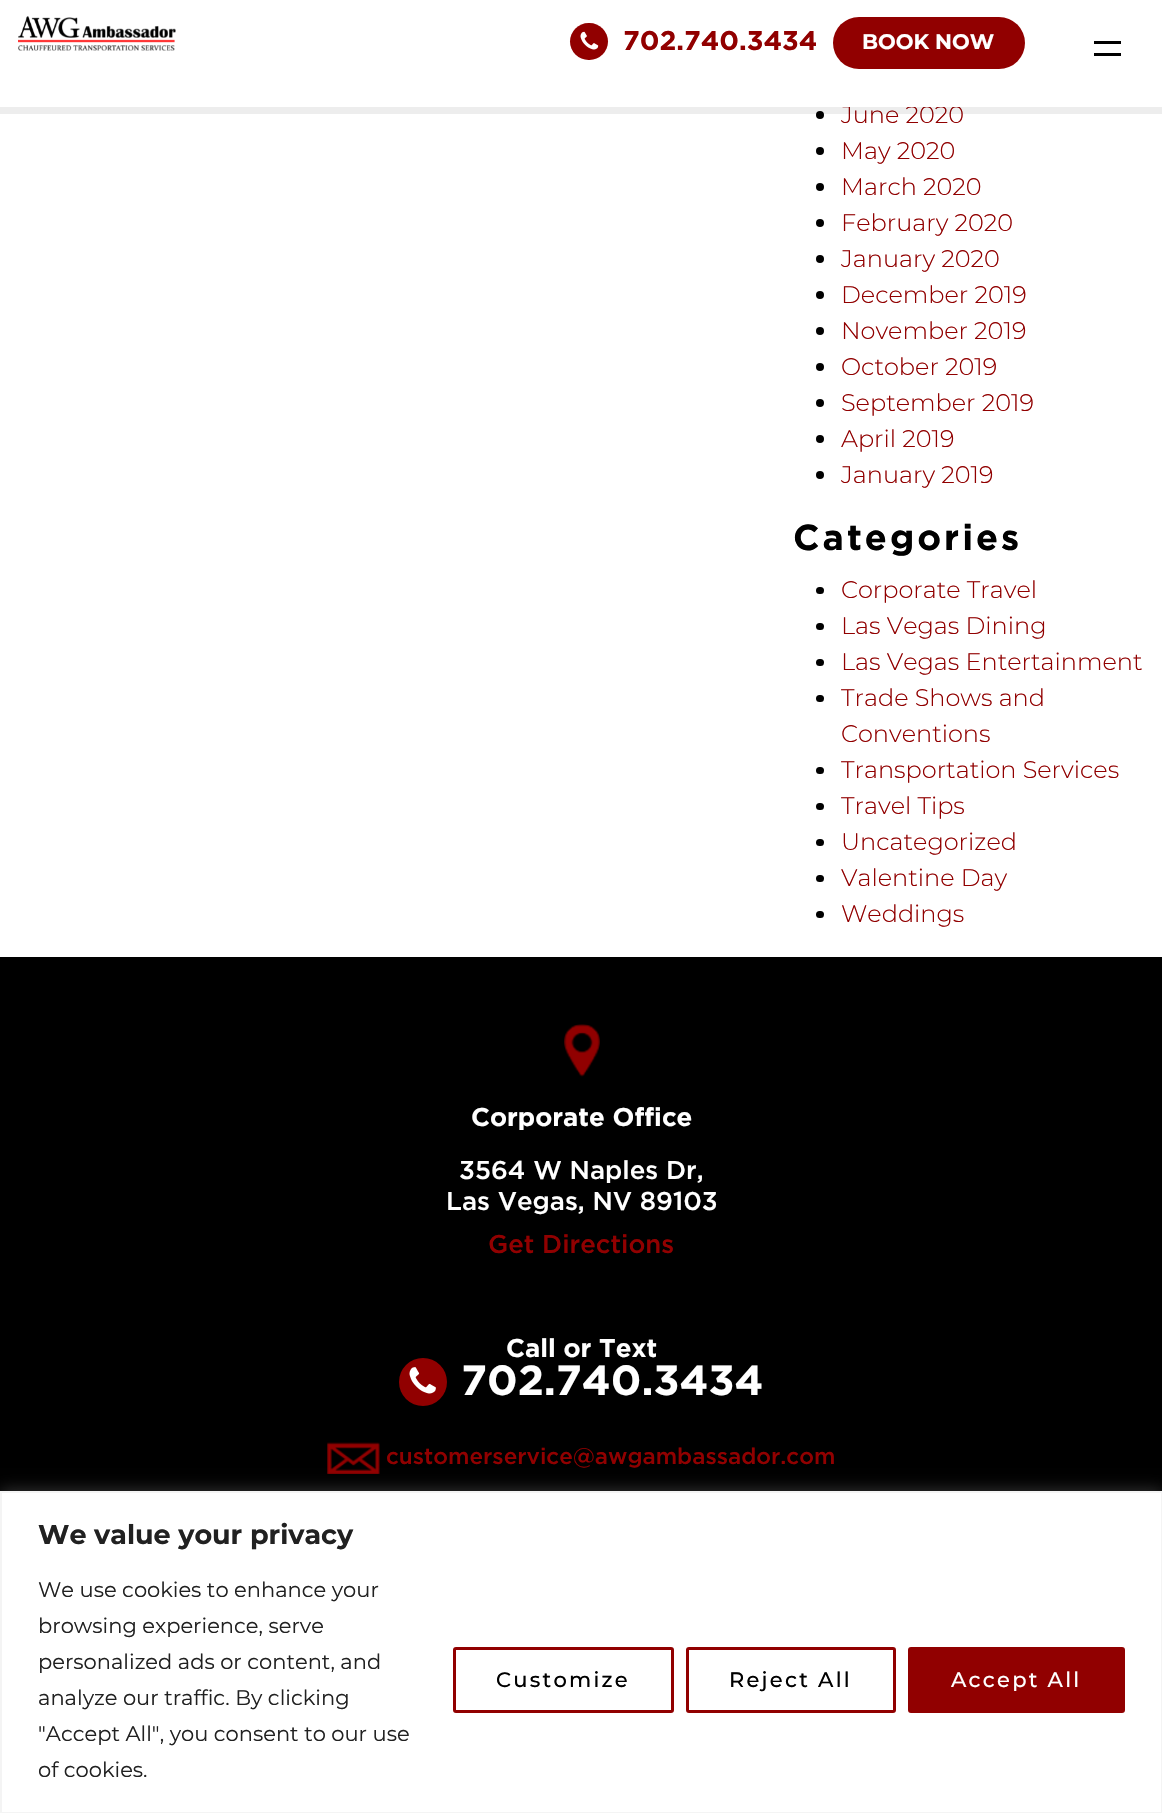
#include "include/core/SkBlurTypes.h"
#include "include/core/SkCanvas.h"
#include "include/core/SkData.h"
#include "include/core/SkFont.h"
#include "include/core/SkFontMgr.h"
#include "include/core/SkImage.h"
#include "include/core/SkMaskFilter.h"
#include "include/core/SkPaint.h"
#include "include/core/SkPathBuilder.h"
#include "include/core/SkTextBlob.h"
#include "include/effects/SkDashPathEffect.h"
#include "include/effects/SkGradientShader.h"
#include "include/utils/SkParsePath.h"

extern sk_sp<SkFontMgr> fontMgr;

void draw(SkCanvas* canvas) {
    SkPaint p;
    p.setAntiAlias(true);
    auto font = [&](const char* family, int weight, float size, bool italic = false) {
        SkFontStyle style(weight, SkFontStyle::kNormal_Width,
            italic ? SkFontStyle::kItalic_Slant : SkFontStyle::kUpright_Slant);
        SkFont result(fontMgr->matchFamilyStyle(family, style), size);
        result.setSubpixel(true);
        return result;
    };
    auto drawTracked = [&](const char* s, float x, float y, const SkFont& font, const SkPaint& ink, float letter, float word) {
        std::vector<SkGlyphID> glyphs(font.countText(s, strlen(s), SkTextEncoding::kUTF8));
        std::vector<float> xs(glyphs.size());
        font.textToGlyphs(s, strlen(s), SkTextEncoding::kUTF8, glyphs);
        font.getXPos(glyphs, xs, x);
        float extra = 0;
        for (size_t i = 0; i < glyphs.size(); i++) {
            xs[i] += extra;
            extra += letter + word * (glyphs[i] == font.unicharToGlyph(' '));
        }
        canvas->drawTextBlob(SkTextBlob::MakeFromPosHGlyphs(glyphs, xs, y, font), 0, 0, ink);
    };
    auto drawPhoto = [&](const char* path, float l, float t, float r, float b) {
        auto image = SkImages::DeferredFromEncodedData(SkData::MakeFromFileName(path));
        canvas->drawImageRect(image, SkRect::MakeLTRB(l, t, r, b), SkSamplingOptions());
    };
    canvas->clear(0xFFFFFFFF);
    p.setColor(0xFF000000);
    canvas->drawCircle(820, 115, 4, p);
    auto font1 = font("Montserrat", 300, 24);
    p.setColor(0xFF910000);
    canvas->drawString("June 2020", 841, 123, font1, p);
    p.setStyle(SkPaint::kStroke_Style);
    p.setStrokeWidth(8);
    p.setColor(0x12000000);
    canvas->drawRect(SkRect::MakeLTRB(-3, -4, 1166, 110), p);
    p.setStyle(SkPaint::kFill_Style);
    p.setColor(0xFFFFFFFF);
    canvas->drawRect(SkRect::MakeLTRB(0, 0, 1162, 107), p);
    drawPhoto("media/1.png", 18, 16, 176, 51);
    p.setColor(0xFF910000);
    canvas->drawRoundRect(SkRect::MakeLTRB(570, 23, 608, 60), 18.5f, 18.5f, p);
    drawPhoto("media/2.png", 580, 31, 599, 50);
    auto font2 = font("Gotham", 700, 27);
    canvas->drawString("702.740.3434", 623, 50, font2, p);
    canvas->drawRoundRect(SkRect::MakeLTRB(833, 17, 1025, 69), 26, 26, p);
    auto font3 = font("Montserrat", 700, 21);
    p.setColor(0xFFFFFFFF);
    canvas->drawString("BOOK NOW", 862, 49, font3, p);
    p.setColor(0xFF000000);
    canvas->drawRect(SkRect::MakeLTRB(1094, 41, 1121, 44), p);
    canvas->drawRect(SkRect::MakeLTRB(1094, 53, 1121, 56), p);
    canvas->drawCircle(820, 151, 4, p);
    p.setColor(0xFF910000);
    canvas->drawString("May 2020", 841, 159, font1, p);
    p.setColor(0xFF000000);
    canvas->drawCircle(820, 187, 4, p);
    p.setColor(0xFF910000);
    canvas->drawString("March 2020", 841, 195, font1, p);
    p.setColor(0xFF000000);
    canvas->drawCircle(820, 223, 4, p);
    p.setColor(0xFF910000);
    canvas->drawString("February 2020", 841, 231, font1, p);
    p.setColor(0xFF000000);
    canvas->drawCircle(820, 259, 4, p);
    p.setColor(0xFF910000);
    canvas->drawString("January 2020", 841, 267, font1, p);
    p.setColor(0xFF000000);
    canvas->drawCircle(820, 295, 4, p);
    p.setColor(0xFF910000);
    canvas->drawString("December 2019", 841, 303, font1, p);
    p.setColor(0xFF000000);
    canvas->drawCircle(820, 331, 4, p);
    p.setColor(0xFF910000);
    canvas->drawString("November 2019", 841, 339, font1, p);
    p.setColor(0xFF000000);
    canvas->drawCircle(820, 367, 4, p);
    p.setColor(0xFF910000);
    canvas->drawString("October 2019", 841, 375, font1, p);
    p.setColor(0xFF000000);
    canvas->drawCircle(820, 403, 4, p);
    p.setColor(0xFF910000);
    canvas->drawString("September 2019", 841, 411, font1, p);
    p.setColor(0xFF000000);
    canvas->drawCircle(820, 439, 4, p);
    p.setColor(0xFF910000);
    canvas->drawString("April 2019", 841, 447, font1, p);
    p.setColor(0xFF000000);
    canvas->drawCircle(820, 475, 4, p);
    p.setColor(0xFF910000);
    canvas->drawString("January 2019", 841, 483, font1, p);
    auto font4 = font("Gotham", 700, 36);
    p.setColor(0xFF000000);
    drawTracked("Categories", 793, 550, font4, p, 3, 0);
    canvas->drawRoundRect(SkRect::MakeLTRB(816, 587, 824, 594), 3.5f, 3.5f, p);
    p.setColor(0xFF910000);
    canvas->drawString("Corporate Travel", 841, 598, font1, p);
    p.setColor(0xFF000000);
    canvas->drawRoundRect(SkRect::MakeLTRB(816, 623, 824, 630), 3.5f, 3.5f, p);
    p.setColor(0xFF910000);
    canvas->drawString("Las Vegas Dining", 841, 634, font1, p);
    p.setColor(0xFF000000);
    canvas->drawRoundRect(SkRect::MakeLTRB(816, 659, 824, 666), 3.5f, 3.5f, p);
    p.setColor(0xFF910000);
    canvas->drawString("Las Vegas Entertainment", 841, 670, font1, p);
    p.setColor(0xFF000000);
    canvas->drawRoundRect(SkRect::MakeLTRB(816, 695, 824, 702), 3.5f, 3.5f, p);
    p.setColor(0xFF910000);
    canvas->drawString("Trade Shows and", 841, 706, font1, p);
    canvas->drawString("Conventions", 841, 742, font1, p);
    p.setColor(0xFF000000);
    canvas->drawRoundRect(SkRect::MakeLTRB(816, 767, 824, 774), 3.5f, 3.5f, p);
    p.setColor(0xFF910000);
    canvas->drawString("Transportation Services", 841, 778, font1, p);
    p.setColor(0xFF000000);
    canvas->drawRoundRect(SkRect::MakeLTRB(816, 803, 824, 810), 3.5f, 3.5f, p);
    p.setColor(0xFF910000);
    canvas->drawString("Travel Tips", 841, 814, font1, p);
    p.setColor(0xFF000000);
    canvas->drawRoundRect(SkRect::MakeLTRB(816, 839, 824, 846), 3.5f, 3.5f, p);
    p.setColor(0xFF910000);
    canvas->drawString("Uncategorized", 841, 850, font1, p);
    p.setColor(0xFF000000);
    canvas->drawRoundRect(SkRect::MakeLTRB(816, 875, 824, 882), 3.5f, 3.5f, p);
    p.setColor(0xFF910000);
    canvas->drawString("Valentine Day", 841, 886, font1, p);
    p.setColor(0xFF000000);
    canvas->drawRoundRect(SkRect::MakeLTRB(816, 911, 824, 918), 3.5f, 3.5f, p);
    p.setColor(0xFF910000);
    canvas->drawString("Weddings", 841, 922, font1, p);
    p.setColor(0xFF000000);
    canvas->drawRect(SkRect::MakeLTRB(0, 957, 1162, 1491), p);
    drawPhoto("media/3.png", 564, 1024, 600, 1077);
    auto font5 = font("Gotham", 700, 25.75f);
    p.setColor(0xFFFFFFFF);
    canvas->drawString("Corporate Office", 471, 1126, font5, p);
    auto font6 = font("Gotham", 500, 25.75f);
    canvas->drawString("3564 W Naples Dr,", 459, 1179, font6, p);
    canvas->drawString("Las Vegas, NV 89103", 446, 1210, font6, p);
    p.setColor(0xFF910000);
    canvas->drawString("Get Directions", 488, 1253, font6, p);
    p.setColor(0xFFFFFFFF);
    canvas->drawString("Call or Text", 506, 1357, font5, p);
    p.setColor(0xFF910000);
    canvas->drawCircle(423, 1382, 24, p);
    drawPhoto("media/4.png", 409, 1367, 436, 1394);
    auto font7 = font("Gotham", 700, 42);
    p.setColor(0xFFFFFFFF);
    canvas->drawString("702.740.3434", 461, 1395, font7, p);
    drawPhoto("media/5.png", 327, 1442, 380, 1474);
    auto font8 = font("Gotham", 500, 22.5f);
    p.setColor(0xFF910000);
    canvas->drawString("customerservice@awgambassador.com", 386, 1464, font8, p);
    p.setColor(0x4DACABAB);
    p.setMaskFilter(SkMaskFilter::MakeBlur(kNormal_SkBlurStyle, 7.5f));
    canvas->drawRect(SkRect::MakeLTRB(0, 1490, 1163, 1812), p);
    p.setMaskFilter(nullptr);
    p.setColor(0xFFFFFFFF);
    canvas->drawRect(SkRect::MakeLTRB(1, 1492, 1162, 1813), p);
    p.setStyle(SkPaint::kStroke_Style);
    p.setStrokeWidth(2);
    p.setColor(0xFFF4F4F4);
    canvas->drawRect(SkRect::MakeLTRB(1, 1492, 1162, 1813), p);
    auto font9 = font("Montserrat", 700, 27);
    p.setStyle(SkPaint::kFill_Style);
    p.setColor(0xFF212121);
    canvas->drawString("We value your privacy", 38, 1544, font9, p);
    auto font10 = font("Montserrat", 400, 21);
    {
        const struct { const char* s; float x, y; } items[] = {
            {"We use cookies to enhance your", 38, 1597},
            {"browsing experience, serve", 38, 1633},
            {"personalized ads or content, and", 38, 1669},
            {"analyze our traffic. By clicking", 38, 1705},
            {"\"Accept All\", you consent to our use", 38, 1741},
            {"of cookies.", 38, 1777},
        };
        for (auto [s, x, y] : items) {
            canvas->drawString(s, x, y, font10, p);
        }
    }
    p.setStyle(SkPaint::kStroke_Style);
    p.setStrokeWidth(3);
    p.setColor(0xFF910000);
    canvas->drawRoundRect(SkRect::MakeLTRB(454.5f, 1648.5f, 672.5f, 1711.5f), 1.5f, 1.5f, p);
    auto font11 = font("Montserrat", 500, 21);
    p.setStyle(SkPaint::kFill_Style);
    p.setColor(0xFF000000);
    drawTracked("Customize", 496, 1687, font11, p, 2.25f, 0);
    p.setStyle(SkPaint::kStroke_Style);
    p.setColor(0xFF910000);
    canvas->drawRoundRect(SkRect::MakeLTRB(687.5f, 1648.5f, 894.5f, 1711.5f), 1.5f, 1.5f, p);
    p.setStyle(SkPaint::kFill_Style);
    p.setColor(0xFF000000);
    drawTracked("Reject All", 729, 1687, font11, p, 2.25f, 0);
    p.setColor(0xFF910000);
    canvas->drawRoundRect(SkRect::MakeLTRB(909.5f, 1648.5f, 1123.5f, 1711.5f), 1.5f, 1.5f, p);
    p.setStyle(SkPaint::kStroke_Style);
    canvas->drawRoundRect(SkRect::MakeLTRB(909.5f, 1648.5f, 1123.5f, 1711.5f), 1.5f, 1.5f, p);
    p.setStyle(SkPaint::kFill_Style);
    p.setColor(0xFFFFFFFF);
    drawTracked("Accept All", 951, 1687, font11, p, 2.25f, 0);
}
